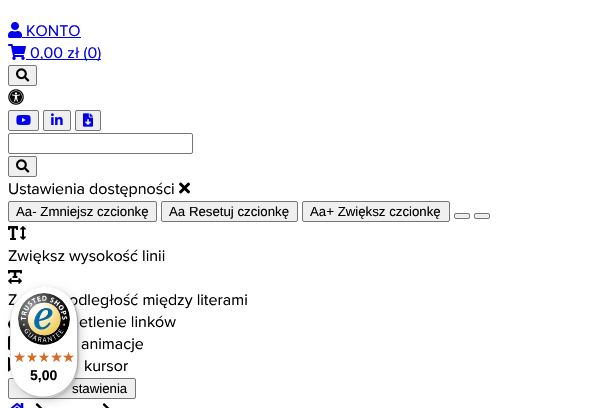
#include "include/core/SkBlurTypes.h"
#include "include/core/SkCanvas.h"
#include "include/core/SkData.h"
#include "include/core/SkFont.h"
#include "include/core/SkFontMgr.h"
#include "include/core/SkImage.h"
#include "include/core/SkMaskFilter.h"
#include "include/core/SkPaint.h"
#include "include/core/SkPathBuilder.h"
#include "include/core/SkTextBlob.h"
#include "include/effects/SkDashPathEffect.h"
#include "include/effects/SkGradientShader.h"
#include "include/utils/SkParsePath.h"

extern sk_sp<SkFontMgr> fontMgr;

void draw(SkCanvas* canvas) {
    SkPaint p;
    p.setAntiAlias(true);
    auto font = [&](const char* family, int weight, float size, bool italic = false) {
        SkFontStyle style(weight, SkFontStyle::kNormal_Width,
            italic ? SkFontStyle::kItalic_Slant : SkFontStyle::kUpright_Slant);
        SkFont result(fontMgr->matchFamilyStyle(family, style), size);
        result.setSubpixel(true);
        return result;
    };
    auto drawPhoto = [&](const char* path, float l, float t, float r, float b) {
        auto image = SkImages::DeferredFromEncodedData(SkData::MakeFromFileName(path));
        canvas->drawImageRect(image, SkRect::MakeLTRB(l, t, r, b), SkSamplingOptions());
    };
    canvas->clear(0xFFFFFFFF);
    drawPhoto("media/1.png", 8, 22, 22, 38);
    auto font1 = font("Proxima Nova", 400, 16);
    p.setColor(0xFF0000EE);
    canvas->drawString("KONTO", 26, 36, font1, p);
    canvas->drawRect(SkRect::MakeLTRB(22, 37, 81, 38), p);
    drawPhoto("media/2.png", 8, 44, 26, 60);
    canvas->drawRect(SkRect::MakeLTRB(26, 59, 101, 60), p);
    canvas->drawString("0,00 zł (0)", 30, 58, font1, p);
    p.setColor(0xFFEFEFEF);
    canvas->drawRoundRect(SkRect::MakeLTRB(8.5f, 65.5f, 36.5f, 85.5f), 1.5f, 1.5f, p);
    p.setStyle(SkPaint::kStroke_Style);
    p.setStrokeWidth(1);
    p.setColor(0xFF767676);
    canvas->drawRoundRect(SkRect::MakeLTRB(8.5f, 65.5f, 36.5f, 85.5f), 1.5f, 1.5f, p);
    drawPhoto("media/3.png", 16, 68, 30, 82);
    drawPhoto("media/4.png", 8, 89, 24, 105);
    p.setStyle(SkPaint::kFill_Style);
    p.setColor(0xFFEFEFEF);
    canvas->drawRoundRect(SkRect::MakeLTRB(8.5f, 110.5f, 38.5f, 130.5f), 1.5f, 1.5f, p);
    p.setStyle(SkPaint::kStroke_Style);
    p.setColor(0xFF767676);
    canvas->drawRoundRect(SkRect::MakeLTRB(8.5f, 110.5f, 38.5f, 130.5f), 1.5f, 1.5f, p);
    drawPhoto("media/5.png", 16, 115, 31, 125);
    p.setStyle(SkPaint::kFill_Style);
    p.setColor(0xFFEFEFEF);
    canvas->drawRoundRect(SkRect::MakeLTRB(43.5f, 110.5f, 70.5f, 130.5f), 1.5f, 1.5f, p);
    p.setStyle(SkPaint::kStroke_Style);
    p.setColor(0xFF767676);
    canvas->drawRoundRect(SkRect::MakeLTRB(43.5f, 110.5f, 70.5f, 130.5f), 1.5f, 1.5f, p);
    drawPhoto("media/6.png", 51, 113, 63, 125);
    p.setStyle(SkPaint::kFill_Style);
    p.setColor(0xFFEFEFEF);
    canvas->drawRoundRect(SkRect::MakeLTRB(75.5f, 110.5f, 100.5f, 130.5f), 1.5f, 1.5f, p);
    p.setStyle(SkPaint::kStroke_Style);
    p.setColor(0xFF767676);
    canvas->drawRoundRect(SkRect::MakeLTRB(75.5f, 110.5f, 100.5f, 130.5f), 1.5f, 1.5f, p);
    drawPhoto("media/7.png", 83, 113, 93, 127);
    canvas->drawRoundRect(SkRect::MakeLTRB(8.5f, 133.5f, 192.5f, 153.5f), 1.5f, 1.5f, p);
    p.setStyle(SkPaint::kFill_Style);
    p.setColor(0xFFEFEFEF);
    canvas->drawRoundRect(SkRect::MakeLTRB(8.5f, 156.5f, 36.5f, 176.5f), 1.5f, 1.5f, p);
    p.setStyle(SkPaint::kStroke_Style);
    p.setColor(0xFF767676);
    canvas->drawRoundRect(SkRect::MakeLTRB(8.5f, 156.5f, 36.5f, 176.5f), 1.5f, 1.5f, p);
    drawPhoto("media/3.png", 16, 159, 30, 173);
    p.setStyle(SkPaint::kFill_Style);
    p.setColor(0xFF000000);
    canvas->drawString("Ustawienia dostępności", 8, 194, font1, p);
    drawPhoto("media/8.png", 179, 182, 190, 194);
    p.setColor(0xFFEFEFEF);
    canvas->drawRoundRect(SkRect::MakeLTRB(8.5f, 201.5f, 156.5f, 221.5f), 1.5f, 1.5f, p);
    p.setStyle(SkPaint::kStroke_Style);
    p.setColor(0xFF767676);
    canvas->drawRoundRect(SkRect::MakeLTRB(8.5f, 201.5f, 156.5f, 221.5f), 1.5f, 1.5f, p);
    auto font2 = font("Liberation Sans", 400, 13.25f);
    p.setStyle(SkPaint::kFill_Style);
    p.setColor(0xFF000000);
    canvas->drawString("Aa- Zmniejsz czcionkę", 16, 216, font2, p);
    p.setColor(0xFFEFEFEF);
    canvas->drawRoundRect(SkRect::MakeLTRB(161.5f, 201.5f, 297.5f, 221.5f), 1.5f, 1.5f, p);
    p.setStyle(SkPaint::kStroke_Style);
    p.setColor(0xFF767676);
    canvas->drawRoundRect(SkRect::MakeLTRB(161.5f, 201.5f, 297.5f, 221.5f), 1.5f, 1.5f, p);
    p.setStyle(SkPaint::kFill_Style);
    p.setColor(0xFF000000);
    canvas->drawString("Aa Resetuj czcionkę", 169, 216, font2, p);
    p.setColor(0xFFEFEFEF);
    canvas->drawRoundRect(SkRect::MakeLTRB(302.5f, 201.5f, 449.5f, 221.5f), 1.5f, 1.5f, p);
    p.setStyle(SkPaint::kStroke_Style);
    p.setColor(0xFF767676);
    canvas->drawRoundRect(SkRect::MakeLTRB(302.5f, 201.5f, 449.5f, 221.5f), 1.5f, 1.5f, p);
    p.setStyle(SkPaint::kFill_Style);
    p.setColor(0xFF000000);
    canvas->drawString("Aa+ Zwiększ czcionkę", 310, 216, font2, p);
    p.setColor(0xFFEFEFEF);
    canvas->drawRoundRect(SkRect::MakeLTRB(454.5f, 213.5f, 469.5f, 218.5f), 1.5f, 1.5f, p);
    p.setStyle(SkPaint::kStroke_Style);
    p.setColor(0xFF767676);
    canvas->drawRoundRect(SkRect::MakeLTRB(454.5f, 213.5f, 469.5f, 218.5f), 1.5f, 1.5f, p);
    p.setStyle(SkPaint::kFill_Style);
    p.setColor(0xFFEFEFEF);
    canvas->drawRoundRect(SkRect::MakeLTRB(474.5f, 213.5f, 489.5f, 218.5f), 1.5f, 1.5f, p);
    p.setStyle(SkPaint::kStroke_Style);
    p.setColor(0xFF767676);
    canvas->drawRoundRect(SkRect::MakeLTRB(474.5f, 213.5f, 489.5f, 218.5f), 1.5f, 1.5f, p);
    drawPhoto("media/9.png", 8, 226, 26, 240);
    p.setStyle(SkPaint::kFill_Style);
    p.setColor(0xFF000000);
    canvas->drawString("Zwiększ wysokość linii", 8, 261, font1, p);
    drawPhoto("media/10.png", 8, 270, 22, 284);
    canvas->drawString("Z", 8, 305, font1, p);
    canvas->drawString("odległość między literami", 69, 305, font1, p);
    drawPhoto("media/11.png", 8, 319, 11, 328);
    canvas->drawString("etlenie linków", 79, 327, font1, p);
    drawPhoto("media/12.png", 8, 336, 10, 350);
    canvas->drawString("animacje", 81, 349, font1, p);
    drawPhoto("media/13.png", 8, 357, 11, 372);
    canvas->drawString("kursor", 84, 371, font1, p);
    p.setColor(0xFFEFEFEF);
    canvas->drawRoundRect(SkRect::MakeLTRB(8.5f, 378.5f, 135.5f, 398.5f), 1.5f, 1.5f, p);
    p.setStyle(SkPaint::kStroke_Style);
    p.setColor(0xFF767676);
    canvas->drawRoundRect(SkRect::MakeLTRB(8.5f, 378.5f, 135.5f, 398.5f), 1.5f, 1.5f, p);
    p.setStyle(SkPaint::kFill_Style);
    p.setColor(0xFF000000);
    canvas->drawString("stawienia", 72, 393, font2, p);
    drawPhoto("media/23.png", 10, 403, 24, 408);
    drawPhoto("media/24.png", 35, 403, 43, 408);
    p.setColor(0x26000000);
    p.setMaskFilter(SkMaskFilter::MakeBlur(kNormal_SkBlurStyle, 4));
    canvas->drawRoundRect(SkRect::MakeLTRB(13, 289, 81, 401), 34, 34, p);
    p.setMaskFilter(nullptr);
    p.setMaskFilter(SkMaskFilter::MakeBlur(kNormal_SkBlurStyle, 1));
    canvas->drawRoundRect(SkRect::MakeLTRB(11, 287, 79, 399), 34, 34, p);
    p.setMaskFilter(nullptr);
    p.setColor(0xFFFFFFFF);
    canvas->drawRoundRect(SkRect::MakeLTRB(10, 286, 78, 398), 34, 34, p);
    p.setColor(0x1A000000);
    canvas->drawPath(SkPathBuilder().moveTo(45, 287).cubicTo(53, 287, 61, 290, 67, 295).cubicTo(50, 280, 22, 286, 13, 307).cubicTo(8, 317, 10, 331, 10, 342).cubicTo(10, 357, 7, 374, 19, 387).cubicTo(14, 381, 11, 373, 11, 365).lineTo(11, 321).cubicTo(11, 302, 26, 287, 45, 287).close().detach(), p);
    p.setColor(0x33000000);
    canvas->drawPath(SkPathBuilder().moveTo(21, 389).cubicTo(38, 404, 66, 398, 75, 377).cubicTo(80, 367, 78, 353, 78, 342).cubicTo(78, 327, 81, 310, 69, 297).cubicTo(79, 310, 77, 326, 77, 341).cubicTo(77, 352, 79, 366, 74, 376).cubicTo(66, 397, 38, 403, 21, 389).close().detach(), p);
    p.setColor(0x33323232);
    canvas->drawPath(SkPathBuilder().moveTo(17, 385).cubicTo(24, 393, 33, 398, 44, 398).cubicTo(63, 398, 78, 383, 78, 364).lineTo(78, 320).cubicTo(78, 309, 73, 300, 65, 293).cubicTo(72, 300, 77, 309, 77, 319).lineTo(77, 363).cubicTo(77, 382, 62, 397, 43, 397).cubicTo(33, 397, 24, 392, 17, 385).close().detach(), p);
    p.setColor(0x4DFFFFFF);
    canvas->drawPath(SkPathBuilder(SkPathFillType::kEvenOdd).moveTo(44, 286).cubicTo(63, 286, 78, 301, 78, 320).cubicTo(78, 301, 62, 286, 44, 286).close().moveTo(78, 364).cubicTo(78, 382, 62, 398, 44, 398).cubicTo(25, 398, 10, 382, 10, 364).cubicTo(10, 383, 25, 398, 44, 398).cubicTo(63, 398, 78, 383, 78, 364).close().detach(), p);
    drawPhoto("media/14.png", 18, 293, 70, 345);
    drawPhoto("media/15.png", 14, 352, 25, 362);
    drawPhoto("media/16.png", 27, 352, 37, 362);
    drawPhoto("media/17.png", 39, 352, 49, 362);
    drawPhoto("media/18.png", 51, 352, 62, 362);
    drawPhoto("media/18.png", 63, 352, 74, 362);
    drawPhoto("media/19.png", 14, 352, 25, 362);
    drawPhoto("media/20.png", 27, 352, 37, 362);
    drawPhoto("media/21.png", 39, 352, 49, 362);
    drawPhoto("media/22.png", 51, 352, 62, 362);
    drawPhoto("media/22.png", 63, 352, 74, 362);
    auto font3 = font("Liberation Sans", 700, 14);
    p.setColor(0xFF000000);
    canvas->drawString("5,00", 30, 380, font3, p);
    drawPhoto("media/24.png", 102, 403, 110, 408);
}
